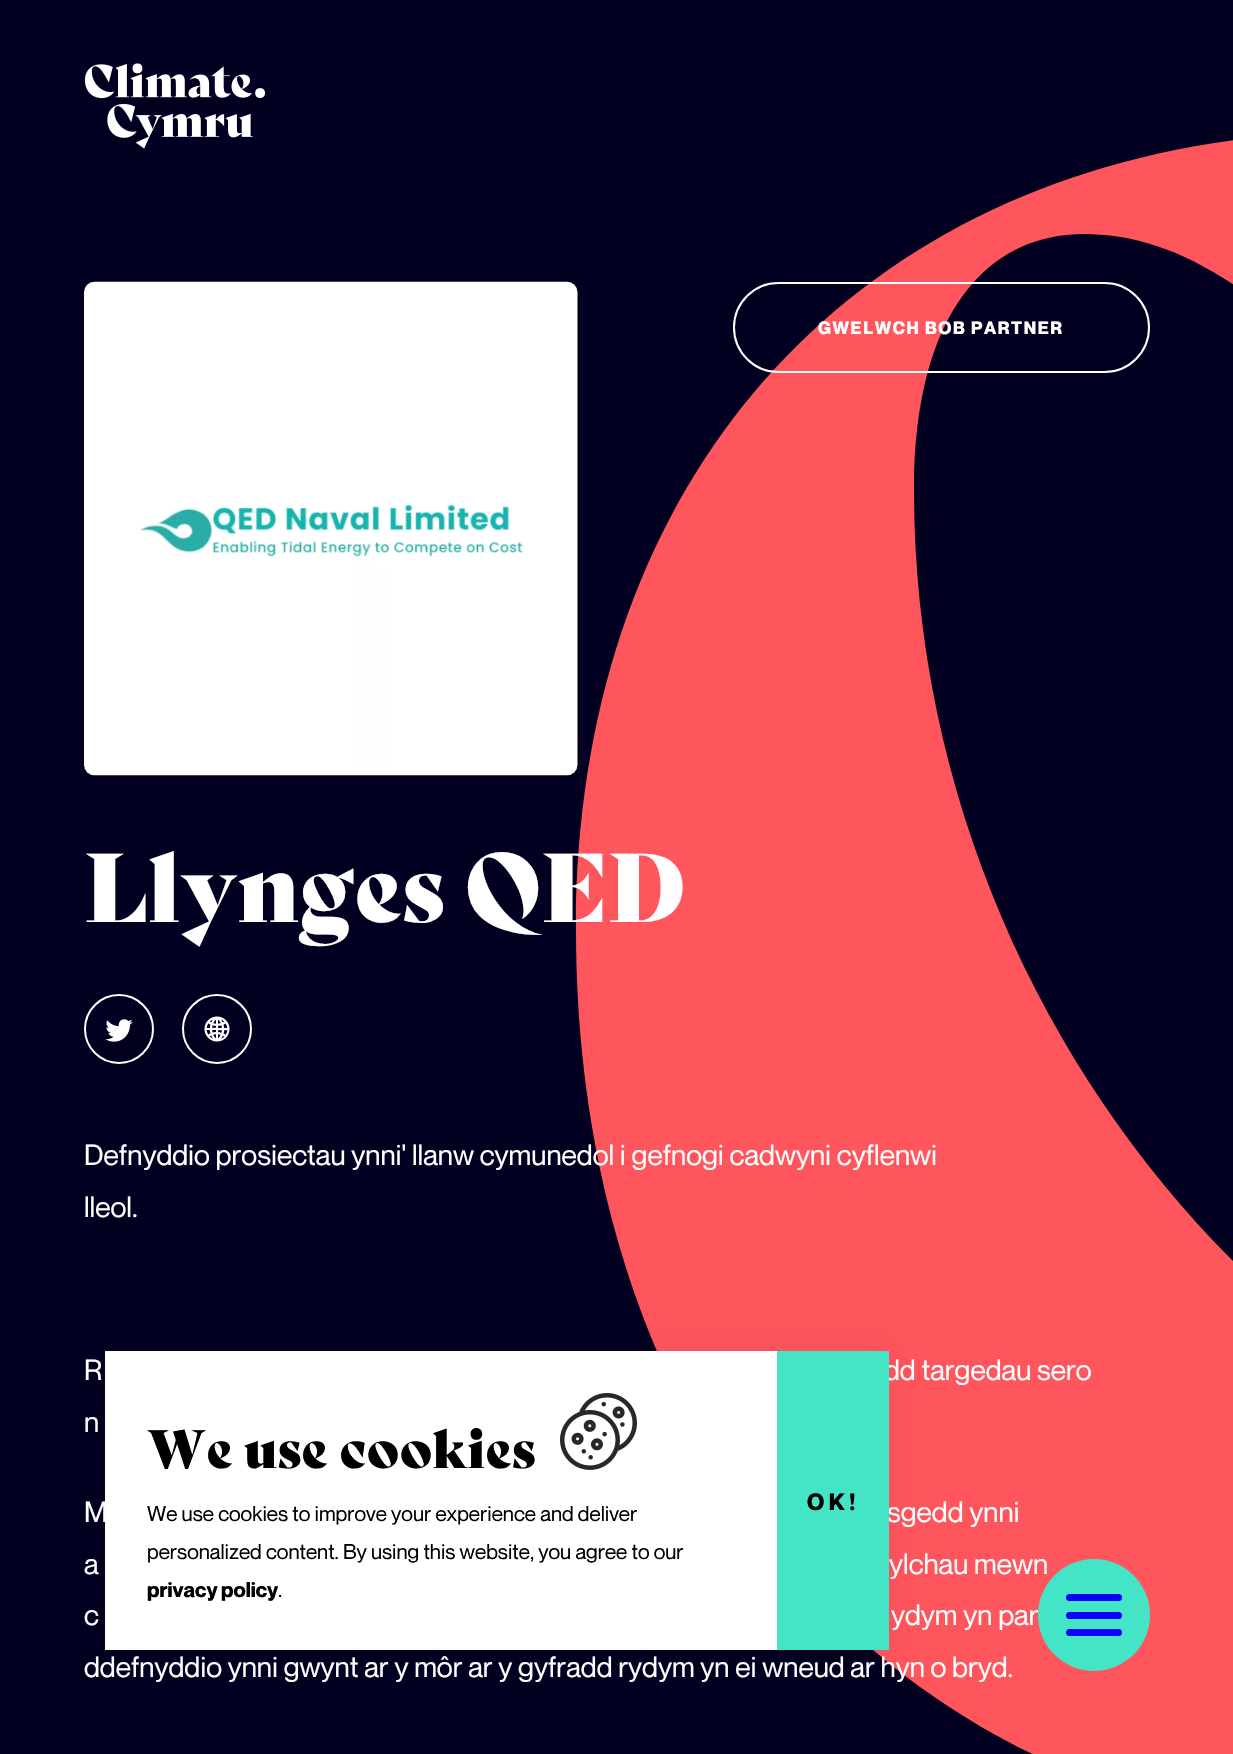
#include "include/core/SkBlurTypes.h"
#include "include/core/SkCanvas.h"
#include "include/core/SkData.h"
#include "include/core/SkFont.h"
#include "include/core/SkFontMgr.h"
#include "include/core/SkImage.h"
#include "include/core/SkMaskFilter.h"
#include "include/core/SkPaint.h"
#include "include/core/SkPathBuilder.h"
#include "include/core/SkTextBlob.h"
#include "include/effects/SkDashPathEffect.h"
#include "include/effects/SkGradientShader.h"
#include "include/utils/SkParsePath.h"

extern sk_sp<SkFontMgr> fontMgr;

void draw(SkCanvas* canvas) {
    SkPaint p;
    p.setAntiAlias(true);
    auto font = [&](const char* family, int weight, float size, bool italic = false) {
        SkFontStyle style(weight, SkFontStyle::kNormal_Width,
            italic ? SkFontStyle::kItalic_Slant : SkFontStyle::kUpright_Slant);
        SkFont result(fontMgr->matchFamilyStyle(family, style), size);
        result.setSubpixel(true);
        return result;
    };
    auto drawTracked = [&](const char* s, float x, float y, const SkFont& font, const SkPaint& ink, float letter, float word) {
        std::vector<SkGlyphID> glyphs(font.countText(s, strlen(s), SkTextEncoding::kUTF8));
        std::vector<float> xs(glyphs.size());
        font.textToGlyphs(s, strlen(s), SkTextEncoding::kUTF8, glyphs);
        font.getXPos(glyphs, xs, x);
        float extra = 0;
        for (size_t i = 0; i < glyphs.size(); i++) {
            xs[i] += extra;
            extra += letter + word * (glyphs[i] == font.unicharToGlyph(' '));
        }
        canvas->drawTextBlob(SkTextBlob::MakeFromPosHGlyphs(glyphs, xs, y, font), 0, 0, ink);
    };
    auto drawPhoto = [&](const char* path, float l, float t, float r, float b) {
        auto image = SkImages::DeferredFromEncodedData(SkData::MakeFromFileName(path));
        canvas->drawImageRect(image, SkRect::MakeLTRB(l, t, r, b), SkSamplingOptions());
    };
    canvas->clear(0xFF010020);
    drawPhoto("media/1.png", 84, 63, 265, 149);
    p.setColor(0xFFFF555D);
    canvas->drawPath(SkPathBuilder().moveTo(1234, 1262).cubicTo(1043, 1071, 914, 795, 914, 490).cubicTo(914, 311, 989, 234, 1084, 234).cubicTo(1130, 234, 1179, 248, 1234, 285).lineTo(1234, 140).cubicTo(833, 194, 576, 494, 576, 930).cubicTo(576, 1396, 831, 1744, 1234, 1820).close().detach(), p);
    drawPhoto("media/2.png", 84, 281, 578, 776);
    p.setStyle(SkPaint::kStroke_Style);
    p.setStrokeWidth(2);
    p.setColor(0xFFFFFFFF);
    canvas->drawRoundRect(SkRect::MakeLTRB(734, 283, 1149, 372), 44.5f, 44.5f, p);
    auto font1 = font("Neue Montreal", 700, 17.5f);
    p.setStyle(SkPaint::kFill_Style);
    drawTracked("GWELWCH BOB PARTNER", 818, 334, font1, p, 1.6f, 0);
    auto font2 = font("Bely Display", 400, 94.75f);
    canvas->drawString("Llynges QED", 84, 922, font2, p);
    p.setStyle(SkPaint::kStroke_Style);
    canvas->drawCircle(119, 1029, 34, p);
    drawPhoto("media/3.png", 105, 1019, 133, 1042);
    canvas->drawCircle(217, 1029, 34, p);
    drawPhoto("media/4.png", 204, 1016, 230, 1042);
    auto font3 = font("Neue Montreal", 400, 28.65f);
    p.setStyle(SkPaint::kFill_Style);
    {
        const struct { const char* s; float x, y; } items[] = {
            {"Defnyddio prosiectau ynni' llanw cymunedol i gefnogi cadwyni cyflenwi", 84, 1165},
            {"lleol.", 84, 1217},
            {"R", 84, 1380},
            {"dd targedau sero", 884, 1380},
            {"n", 84, 1432},
            {"M", 84, 1522},
            {"sgedd ynni", 887, 1522},
            {"a", 84, 1574},
            {"ylchau mewn", 889, 1574},
            {"c", 84, 1625},
            {"ydym yn par", 891, 1625},
            {"ddefnyddio ynni gwynt ar y môr ar y gyfradd rydym yn ei wneud ar hyn o bryd.", 84, 1677},
        };
        for (auto [s, x, y] : items) {
            canvas->drawString(s, x, y, font3, p);
        }
    }
    p.setColor(0x0D000000);
    p.setMaskFilter(SkMaskFilter::MakeBlur(kNormal_SkBlurStyle, 14));
    canvas->drawRect(SkRect::MakeLTRB(105, 1351, 889, 1650), p);
    p.setMaskFilter(nullptr);
    p.setColor(0xFFFFFFFF);
    canvas->drawRect(SkRect::MakeLTRB(105, 1351, 777, 1650), p);
    auto font4 = font("Bely Display", 400, 52.5f);
    p.setColor(0xFF000000);
    canvas->drawString("We use cookies", 147, 1468, font4, p);
    drawPhoto("media/5.png", 560, 1393, 637, 1470);
    p.setColor(0xFF44E5C6);
    canvas->drawRect(SkRect::MakeLTRB(777, 1351, 889, 1650), p);
    auto font5 = font("Neue Montreal", 700, 23);
    p.setColor(0xFF000000);
    drawTracked("OK!", 807, 1510, font5, p, 4.5f, 0);
    auto font6 = font("Neue Montreal", 400, 21);
    canvas->drawString("We use cookies to improve your experience and deliver", 147, 1521, font6, p);
    canvas->drawString("personalized content. By using this website, you agree to our", 147, 1559, font6, p);
    auto font7 = font("Neue Montreal", 700, 21);
    canvas->drawString("privacy policy", 147, 1597, font7, p);
    canvas->drawString(".", 278, 1597, font6, p);
    p.setColor(0xFF44E5C6);
    canvas->drawCircle(1094, 1615, 56, p);
    p.setColor(0xFF0A00FF);
    canvas->drawRoundRect(SkRect::MakeLTRB(1066, 1612, 1122, 1619), 3.5f, 3.5f, p);
    canvas->drawRoundRect(SkRect::MakeLTRB(1066, 1594, 1122, 1601), 3.5f, 3.5f, p);
    canvas->drawRoundRect(SkRect::MakeLTRB(1066, 1629, 1122, 1636), 3.5f, 3.5f, p);
}
